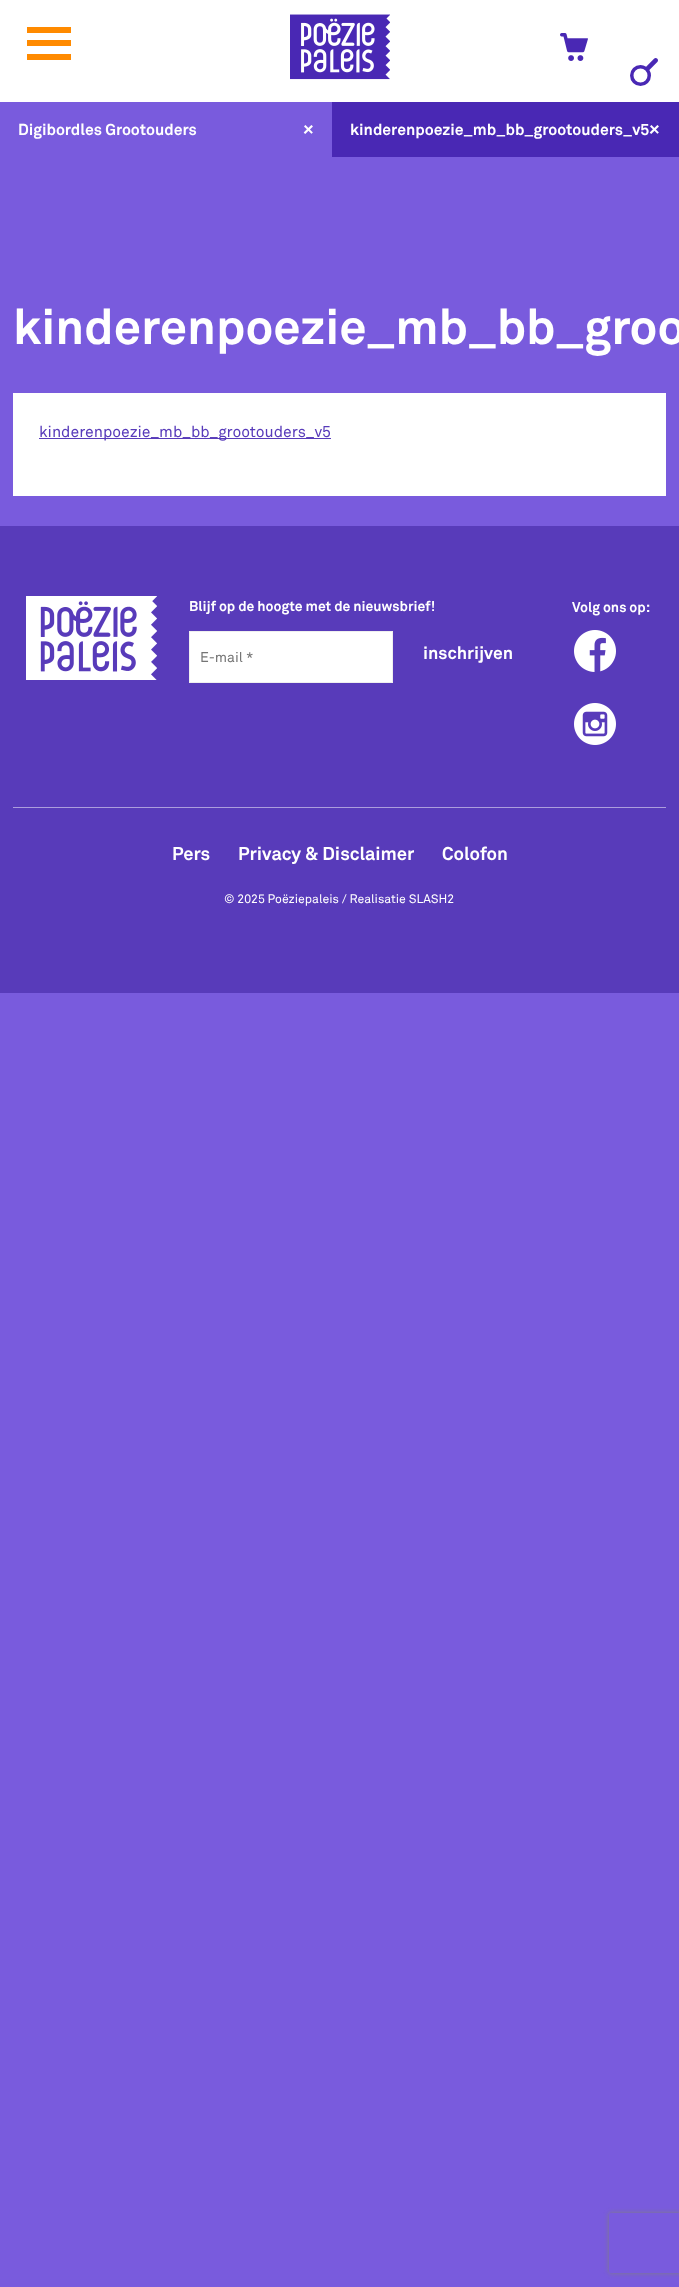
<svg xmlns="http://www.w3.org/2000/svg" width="679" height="2287">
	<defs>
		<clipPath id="clip1"><path d="M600 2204H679V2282H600ZM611 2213H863C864 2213 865 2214 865 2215V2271C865 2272 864 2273 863 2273H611C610 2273 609 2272 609 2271V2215C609 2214 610 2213 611 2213Z" clip-rule="evenodd" /></clipPath>
	</defs>
	<rect width="100%" height="100%" fill="#795BDD" />
	<rect x="0" y="0" width="679" height="102" fill="#FFFFFF" />
	<rect x="27" y="27" width="44" height="6" fill="#FF8A00" />
	<rect x="27" y="40" width="44" height="6" fill="#FF8A00" />
	<rect x="27" y="54" width="44" height="6" fill="#FF8A00" />
	<image x="290" y="14" width="100" height="66" href="assets/img1.png" />
	<image x="560" y="33" width="28" height="28" href="assets/img2.png" />
	<text x="658" y="58" transform="rotate(180 658 58)" font-family="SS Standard" font-size="28" fill="#4928B4">🔎</text>
	<text x="18" y="135" font-family="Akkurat" font-size="15.75" font-weight="700" fill="#FFFFFF">Digibordles Grootouders</text>
	<text x="300" y="129" transform="rotate(45 300 129)" font-family="Akkurat" font-size="18.4" font-weight="700" fill="#FFFFFF">+</text>
	<rect x="332" y="102" width="347" height="55" fill="#4928B4" />
	<text x="350" y="135" font-family="Akkurat" font-size="15.75" font-weight="700" fill="#FFFFFF">kinderenpoezie_mb_bb_grootouders_v5</text>
	<text x="646" y="129" transform="rotate(45 646 129)" font-family="Akkurat" font-size="18.4" font-weight="700" fill="#FFFFFF">+</text>
	<text x="13" y="344" font-family="Akkurat" font-size="49" font-weight="700" fill="#FFFFFF">kinderenpoezie_mb_bb_groo</text>
	<rect x="13" y="393" width="653" height="103" fill="#FFFFFF" />
	<rect x="39" y="438" width="292" height="1" fill="#583BBA" />
	<text x="39" y="437" font-family="Akkurat" font-size="15.75" fill="#583BBA">kinderenpoezie_mb_bb_grootouders_v5</text>
	<rect x="0" y="526" width="679" height="467" fill="#583BBA" />
	<rect x="13" y="807" width="653" height="1" fill="#AC9DDD" />
	<image x="26" y="596" width="131" height="84" href="assets/img3.png" />
	<text x="189" y="611" font-family="Akkurat" font-size="14" font-weight="700" fill="#FFFFFF">Blijf op de hoogte met de nieuwsbrief!</text>
	<rect x="189.5" y="631.5" width="203" height="51" fill="#FFFFFF" stroke="#EFEFEF" />
	<text x="200" y="662" font-family="Akkurat" font-size="14" fill="#757575">E-mail *</text>
	<text x="423" y="659" font-family="Akkurat" font-size="17.5" font-weight="700" fill="#FFFFFF">inschrijven</text>
	<text x="572" y="612" font-family="Akkurat" font-size="14" font-weight="700" fill="#FFFFFF">Volg ons op:</text>
	<image x="574" y="630" width="42" height="42" href="assets/img4.png" />
	<image x="574" y="703" width="42" height="42" href="assets/img5.png" />
	<g font-family="Akkurat" font-size="18.4" font-weight="700" fill="#FFFFFF">
		<text x="172" y="860">Pers</text>
		<text x="238" y="860">Privacy &amp; Disclaimer</text>
		<text x="442" y="860">Colofon</text>
	</g>
	<text x="224" y="903" font-family="Akkurat" font-size="12.25" fill="#FFFFFF">© 2025 Poëziepaleis / Realisatie SLASH2</text>
	<g clip-path="url(#clip1)">
		<rect x="609" y="2213" width="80" height="60" rx="2" fill="#808080" filter="blur(2.5px)" />
	</g>
</svg>
